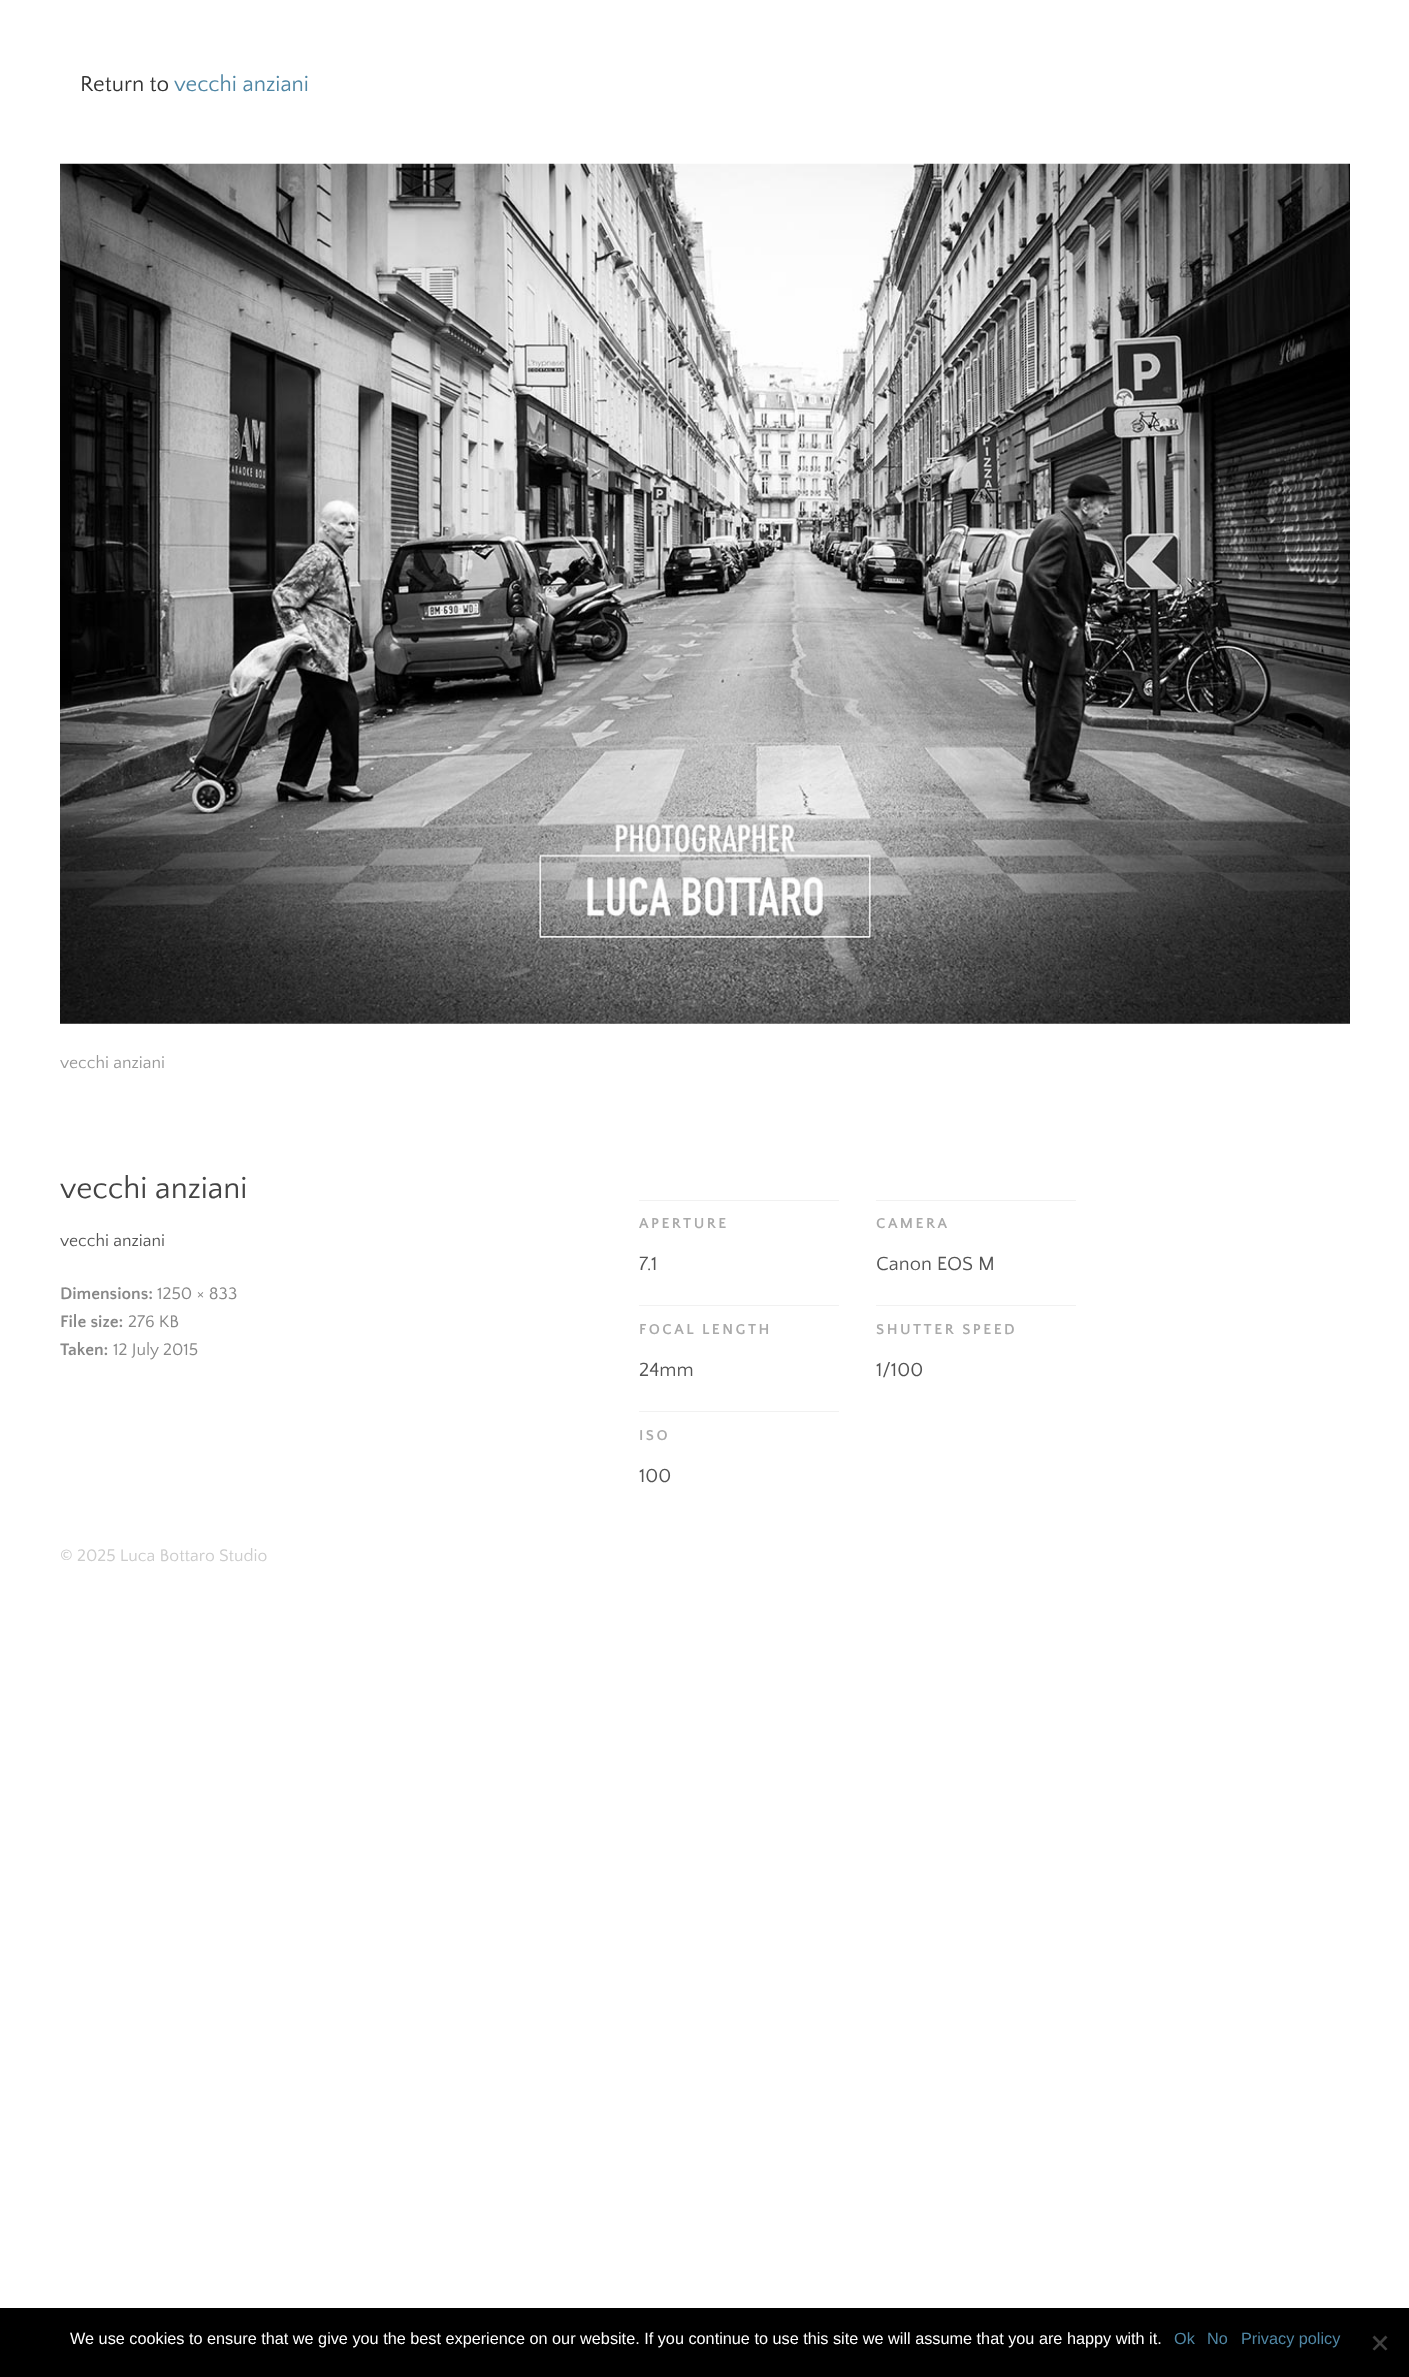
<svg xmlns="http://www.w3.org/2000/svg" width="1409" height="2377">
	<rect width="100%" height="100%" fill="#FFFFFF" />
	<text x="80" y="91" font-family="Quattrocento Sans" font-size="22.5" fill="#333333">Return to</text>
	<text x="174" y="91" font-family="Quattrocento Sans" font-size="22.5" fill="#5087A5">vecchi anziani</text>
	<image x="60" y="163" width="1290" height="861" href="assets/img1.png" />
	<text x="60" y="1068" font-family="Quattrocento Sans" font-size="17.5" fill="#999999">vecchi anziani</text>
	<text x="60" y="1198" font-family="Quattrocento Sans" font-size="31.25" fill="#444444">vecchi anziani</text>
	<text x="60" y="1246" font-family="Quattrocento Sans" font-size="17.5" fill="#555555">vecchi anziani</text>
	<text x="60" y="1299" font-family="Quattrocento Sans" font-size="17.5" font-weight="700" fill="#888888">Dimensions:</text>
	<text x="157" y="1299" font-family="Quattrocento Sans" font-size="17.5" fill="#888888">1250 × 833</text>
	<text x="60" y="1327" font-family="Quattrocento Sans" font-size="17.5" font-weight="700" fill="#888888">File size:</text>
	<text x="128" y="1327" font-family="Quattrocento Sans" font-size="17.5" fill="#888888">276 KB</text>
	<text x="60" y="1355" font-family="Quattrocento Sans" font-size="17.5" font-weight="700" fill="#888888">Taken:</text>
	<text x="113" y="1355" font-family="Quattrocento Sans" font-size="17.5" fill="#888888">12 July 2015</text>
	<rect x="639" y="1200" width="200" height="1" fill="#F1F1F1" />
	<text x="639" y="1228" font-family="Quattrocento Sans" font-size="15" font-weight="700" letter-spacing="2.5" fill="#AAAAAA">APERTURE</text>
	<text x="639" y="1270" font-family="Quattrocento Sans" font-size="20" fill="#555555">7.1</text>
	<rect x="876" y="1200" width="200" height="1" fill="#F1F1F1" />
	<text x="876" y="1228" font-family="Quattrocento Sans" font-size="15" font-weight="700" letter-spacing="2.5" fill="#AAAAAA">CAMERA</text>
	<text x="876" y="1270" font-family="Quattrocento Sans" font-size="20" fill="#555555">Canon EOS M</text>
	<rect x="639" y="1305" width="200" height="1" fill="#F1F1F1" />
	<text x="639" y="1334" font-family="Quattrocento Sans" font-size="15" font-weight="700" letter-spacing="2.5" fill="#AAAAAA">FOCAL LENGTH</text>
	<text x="639" y="1376" font-family="Quattrocento Sans" font-size="20" fill="#555555">24mm</text>
	<rect x="876" y="1305" width="200" height="1" fill="#F1F1F1" />
	<text x="876" y="1334" font-family="Quattrocento Sans" font-size="15" font-weight="700" letter-spacing="2.5" fill="#AAAAAA">SHUTTER SPEED</text>
	<text x="876" y="1376" font-family="Quattrocento Sans" font-size="20" fill="#555555">1/100</text>
	<rect x="639" y="1411" width="200" height="1" fill="#F1F1F1" />
	<text x="639" y="1440" font-family="Quattrocento Sans" font-size="15" font-weight="700" letter-spacing="2.5" fill="#AAAAAA">ISO</text>
	<text x="639" y="1482" font-family="Quattrocento Sans" font-size="20" fill="#555555">100</text>
	<text x="60" y="1561" font-family="Quattrocento Sans" font-size="17.5" fill="#CCCCCC">© 2025 Luca Bottaro Studio</text>
	<rect x="0" y="2308" width="1409" height="69" fill="#000000" />
	<text x="70" y="2344" font-family="Liberation Sans" font-size="16.25" fill="#FFFFFF">We use cookies to ensure that we give you the best experience on our website. If you continue to use this site we will assume that you are happy with it.</text>
	<g font-family="Liberation Sans" font-size="16.25" fill="#5087A5">
		<text x="1174" y="2344">Ok</text>
		<text x="1207" y="2344">No</text>
		<text x="1241" y="2344">Privacy policy</text>
	</g>
	<path d="M1385.5 2335.5L1387.5 2337.5L1374.5 2350.5L1372.5 2349Z" fill="#404040" />
	<path d="M1372.5 2337.5L1374.5 2335.5L1387.5 2349L1385.5 2350.5Z" fill="#404040" />
</svg>
